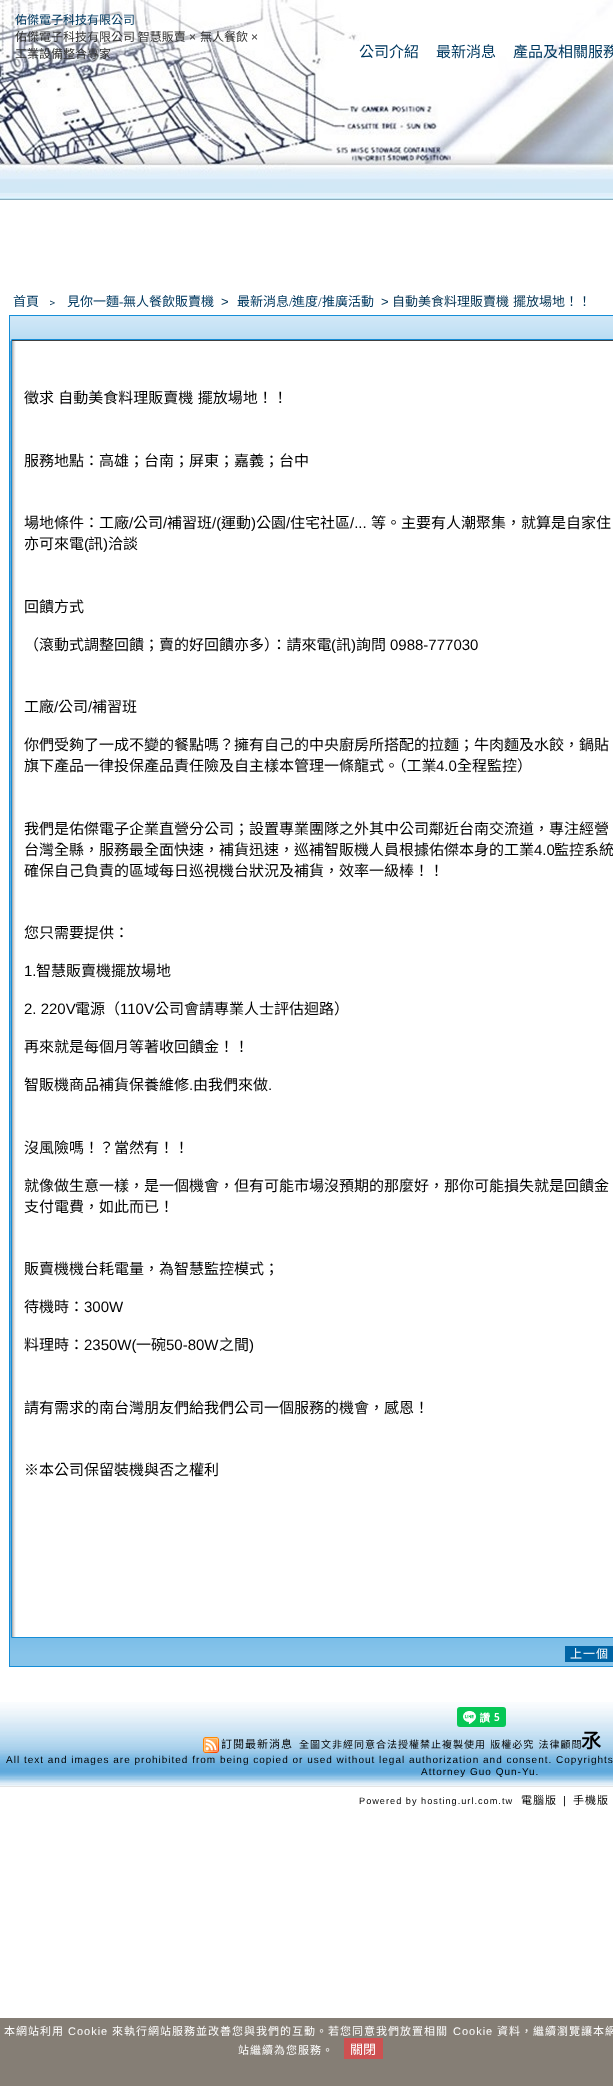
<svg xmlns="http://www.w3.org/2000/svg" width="613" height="2086">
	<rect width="100%" height="100%" fill="#FFFFFF" />
	<image x="0" y="0" width="613" height="200" href="assets/img1.png" />
	<text x="15" y="24" font-family="Noto Sans CJK TC" font-size="12" fill="#003960">佑傑電子科技有限公司</text>
	<text x="15" y="41" font-family="Noto Sans CJK TC" font-size="12" fill="#333333">佑傑電子科技有限公司 智慧販賣</text>
	<text x="189" y="41" font-family="Liberation Sans" font-size="12" fill="#333333">×</text>
	<text x="200" y="41" font-family="Noto Sans CJK TC" font-size="12" fill="#333333">無人餐飲</text>
	<text x="251" y="41" font-family="Liberation Sans" font-size="12" fill="#333333">×</text>
	<text x="15" y="58" font-family="Noto Sans CJK TC" font-size="12" fill="#333333">工業設備整合專家</text>
	<g font-family="Noto Sans CJK TC" font-size="15" fill="#003960">
		<text x="359" y="57">公司介紹</text>
		<text x="436" y="57">最新消息</text>
		<text x="513" y="57">產品及相關服務</text>
	</g>
	<text x="13" y="306" font-family="Noto Sans CJK TC" font-size="13" fill="#003960">首頁</text>
	<text x="46" y="306" font-family="Noto Sans CJK TC" font-size="13" fill="#003152">﹥</text>
	<text x="67" y="306" font-family="Noto Sans CJK TC" font-size="13" fill="#003960">見你一麵</text>
	<text x="119" y="306" font-family="Liberation Serif" font-size="13" fill="#003960">-</text>
	<text x="123" y="306" font-family="Noto Sans CJK TC" font-size="13" fill="#003960">無人餐飲販賣機</text>
	<text x="221" y="306" font-family="Liberation Sans" font-size="13" fill="#003152">&gt;</text>
	<text x="237" y="306" font-family="Noto Sans CJK TC" font-size="13" fill="#003960">最新消息</text>
	<text x="289" y="306" font-family="Liberation Serif" font-size="13" fill="#003960">/</text>
	<text x="292" y="306" font-family="Noto Sans CJK TC" font-size="13" fill="#003960">進度</text>
	<text x="318" y="306" font-family="Liberation Serif" font-size="13" fill="#003960">/</text>
	<text x="322" y="306" font-family="Noto Sans CJK TC" font-size="13" fill="#003960">推廣活動</text>
	<text x="381" y="306" font-family="Liberation Sans" font-size="13" fill="#003152">&gt;</text>
	<text x="392" y="306" word-spacing="1" font-family="Noto Sans CJK TC" font-size="13" fill="#003152">自動美食料理販賣機 擺放場地！！</text>
	<image x="9" y="315" width="604" height="26" href="assets/img2.png" />
	<image x="9" y="341" width="7" height="1273" href="assets/img3.png" />
	<g font-family="Noto Sans CJK TC" font-size="15" fill="#000000">
		<text x="24" y="403" word-spacing="1">徵求 自動美食料理販賣機 擺放場地！！</text>
		<text x="24" y="466">服務地點：高雄；台南；屏東；嘉義；台中</text>
		<text x="24" y="528">場地條件：工廠</text>
	</g>
	<text x="129" y="528" font-family="Liberation Sans" font-size="15" fill="#000000">/</text>
	<text x="133" y="528" font-family="Noto Sans CJK TC" font-size="15" fill="#000000">公司</text>
	<text x="163" y="528" font-family="Liberation Sans" font-size="15" fill="#000000">/</text>
	<text x="167" y="528" font-family="Noto Sans CJK TC" font-size="15" fill="#000000">補習班</text>
	<text x="212" y="528" font-family="Liberation Sans" font-size="15" fill="#000000">/(</text>
	<text x="221" y="528" font-family="Noto Sans CJK TC" font-size="15" fill="#000000">運動</text>
	<text x="251" y="528" font-family="Liberation Sans" font-size="15" fill="#000000">)</text>
	<text x="256" y="528" font-family="Noto Sans CJK TC" font-size="15" fill="#000000">公園</text>
	<text x="286" y="528" font-family="Liberation Sans" font-size="15" fill="#000000">/</text>
	<text x="290" y="528" font-family="Noto Sans CJK TC" font-size="15" fill="#000000">住宅社區</text>
	<text x="350" y="528" font-family="Liberation Sans" font-size="15" fill="#000000">/...</text>
	<g font-family="Noto Sans CJK TC" font-size="15" fill="#000000">
		<text x="371" y="528">等。主要有人潮聚集，就算是自家住</text>
		<text x="24" y="549">亦可來電</text>
	</g>
	<text x="84" y="549" font-family="Liberation Sans" font-size="15" fill="#000000">(</text>
	<text x="88" y="549" font-family="Noto Sans CJK TC" font-size="15" fill="#000000">訊</text>
	<text x="103" y="549" font-family="Liberation Sans" font-size="15" fill="#000000">)</text>
	<g font-family="Noto Sans CJK TC" font-size="15" fill="#000000">
		<text x="108" y="549">洽談</text>
		<text x="24" y="612">回饋方式</text>
		<text x="24" y="650">（滾動式調整回饋；賣的好回饋亦多）：請來電</text>
	</g>
	<text x="331" y="650" font-family="Liberation Sans" font-size="15" fill="#000000">(</text>
	<text x="336" y="650" font-family="Noto Sans CJK TC" font-size="15" fill="#000000">訊</text>
	<text x="351" y="650" font-family="Liberation Sans" font-size="15" fill="#000000">)</text>
	<text x="356" y="650" font-family="Noto Sans CJK TC" font-size="15" fill="#000000">詢問</text>
	<text x="390" y="650" font-family="Liberation Sans" font-size="15" fill="#000000">0988-777030</text>
	<text x="24" y="712" font-family="Noto Sans CJK TC" font-size="15" fill="#000000">工廠</text>
	<text x="54" y="712" font-family="Liberation Sans" font-size="15" fill="#000000">/</text>
	<text x="58" y="712" font-family="Noto Sans CJK TC" font-size="15" fill="#000000">公司</text>
	<text x="88" y="712" font-family="Liberation Sans" font-size="15" fill="#000000">/</text>
	<g font-family="Noto Sans CJK TC" font-size="15" fill="#000000">
		<text x="92" y="712">補習班</text>
		<text x="24" y="750">你們受夠了一成不變的餐點嗎？擁有自己的中央廚房所搭配的拉麵；牛肉麵及水餃，鍋貼</text>
		<text x="24" y="771">旗下產品一律投保產品責任險及自主樣本管理一條龍式。（工業</text>
	</g>
	<text x="436" y="771" font-family="Liberation Sans" font-size="15" fill="#000000">4.0</text>
	<g font-family="Noto Sans CJK TC" font-size="15" fill="#000000">
		<text x="457" y="771">全程監控）</text>
		<text x="24" y="834">我們是佑傑電子企業直營分公司；設置專業團隊之外其中公司鄰近台南交流道，專注經營</text>
		<text x="24" y="855">台灣全縣，服務最全面快速，補貨迅速，巡補智販機人員根據佑傑本身的工業</text>
	</g>
	<text x="534" y="855" font-family="Liberation Sans" font-size="15" fill="#000000">4.0</text>
	<g font-family="Noto Sans CJK TC" font-size="15" fill="#000000">
		<text x="554" y="855">監控系統</text>
		<text x="24" y="876">確保自己負責的區域每日巡視機台狀況及補貨，效率一級棒！！</text>
		<text x="24" y="938">您只需要提供：</text>
	</g>
	<text x="24" y="976" font-family="Liberation Sans" font-size="15" fill="#000000">1.</text>
	<text x="36" y="976" font-family="Noto Sans CJK TC" font-size="15" fill="#000000">智慧販賣機擺放場地</text>
	<text x="24" y="1014" font-family="Liberation Sans" font-size="15" fill="#000000">2. 220V</text>
	<text x="75" y="1014" font-family="Noto Sans CJK TC" font-size="15" fill="#000000">電源（</text>
	<text x="120" y="1014" font-family="Liberation Sans" font-size="15" fill="#000000">110V</text>
	<g font-family="Noto Sans CJK TC" font-size="15" fill="#000000">
		<text x="154" y="1014">公司會請專業人士評估迴路）</text>
		<text x="24" y="1052">再來就是每個月等著收回饋金！！</text>
		<text x="24" y="1090">智販機商品補貨保養維修</text>
	</g>
	<text x="189" y="1090" font-family="Liberation Sans" font-size="15" fill="#000000">.</text>
	<text x="193" y="1090" font-family="Noto Sans CJK TC" font-size="15" fill="#000000">由我們來做</text>
	<text x="268" y="1090" font-family="Liberation Sans" font-size="15" fill="#000000">.</text>
	<g font-family="Noto Sans CJK TC" font-size="15" fill="#000000">
		<text x="24" y="1153">沒風險嗎！？當然有！！</text>
		<text x="24" y="1191">就像做生意一樣，是一個機會，但有可能市場沒預期的那麼好，那你可能損失就是回饋金</text>
		<text x="24" y="1212">支付電費，如此而已！</text>
		<text x="24" y="1274">販賣機機台耗電量，為智慧監控模式；</text>
		<text x="24" y="1312">待機時：</text>
	</g>
	<text x="84" y="1312" font-family="Liberation Sans" font-size="15" fill="#000000">300W</text>
	<text x="24" y="1350" font-family="Noto Sans CJK TC" font-size="15" fill="#000000">料理時：</text>
	<text x="84" y="1350" font-family="Liberation Sans" font-size="15" fill="#000000">2350W(</text>
	<text x="136" y="1350" font-family="Noto Sans CJK TC" font-size="15" fill="#000000">一碗</text>
	<text x="166" y="1350" font-family="Liberation Sans" font-size="15" fill="#000000">50-80W</text>
	<text x="219" y="1350" font-family="Noto Sans CJK TC" font-size="15" fill="#000000">之間</text>
	<text x="249" y="1350" font-family="Liberation Sans" font-size="15" fill="#000000">)</text>
	<g font-family="Noto Sans CJK TC" font-size="15" fill="#000000">
		<text x="24" y="1413">請有需求的南台灣朋友們給我們公司一個服務的機會，感恩！</text>
		<text x="24" y="1475">※本公司保留裝機與否之權利</text>
	</g>
	<image x="9" y="1614" width="604" height="53" href="assets/img4.png" />
	<rect x="565" y="1646" width="48" height="16" fill="#0064A5" />
	<text x="570" y="1658" font-family="Noto Sans CJK TC" font-size="12" letter-spacing="1" fill="#FFFFFF">上一個</text>
	<image x="0" y="1702" width="613" height="85" href="assets/img5.png" />
	<image x="457" y="1707" width="49" height="20" href="assets/img6.png" />
	<image x="203" y="1737" width="16" height="16" href="assets/img7.png" />
	<text x="221" y="1748" font-family="Noto Sans CJK TC" font-size="11" letter-spacing="1" fill="#000000">訂閱最新消息</text>
	<text x="299" y="1748" word-spacing="1" font-family="Noto Sans CJK TC" font-size="10" letter-spacing="1" fill="#000000">全圖文非經同意合法授權禁止複製使用 版權必究 法律顧問</text>
	<text x="581" y="1748" font-family="Noto Sans CJK TC" font-size="20" font-weight="700" letter-spacing="1" fill="#000000">氶</text>
	<g font-family="Liberation Sans" font-size="10" letter-spacing="1" fill="#000000">
		<text x="6" y="1763">All text and images are prohibited from being copied or used without legal authorization and consent. Copyrights</text>
		<text x="421" y="1775">Attorney Guo Qun-Yu.</text>
	</g>
	<text x="359" y="1804" font-family="Liberation Sans" font-size="9.2" letter-spacing="1" fill="#000000">Powered by hosting.url.com.tw</text>
	<text x="521" y="1804" font-family="Noto Sans CJK TC" font-size="11" letter-spacing="1" fill="#000000">電腦版</text>
	<text x="563" y="1804" font-family="Liberation Sans" font-size="11" letter-spacing="1" fill="#000000">|</text>
	<text x="573" y="1804" font-family="Noto Sans CJK TC" font-size="11" letter-spacing="1" fill="#000000">手機版</text>
	<rect x="0" y="2018" width="613" height="68" fill="#857E75" />
	<text x="4" y="2035" font-family="Noto Sans CJK TC" font-size="11" letter-spacing="1" fill="#FFFFFF">本網站利用</text>
	<text x="68" y="2035" font-family="Liberation Sans" font-size="11" letter-spacing="1" fill="#FFFFFF">Cookie</text>
	<text x="112" y="2035" font-family="Noto Sans CJK TC" font-size="11" letter-spacing="1" fill="#FFFFFF">來執行網站服務並改善您與我們的互動。若您同意我們放置相關</text>
	<text x="453" y="2035" font-family="Liberation Sans" font-size="11" letter-spacing="1" fill="#FFFFFF">Cookie</text>
	<g font-family="Noto Sans CJK TC" font-size="11" letter-spacing="1" fill="#FFFFFF">
		<text x="497" y="2035">資料，繼續瀏覽讓本網</text>
		<text x="238" y="2054">站繼續為您服務。</text>
	</g>
	<rect x="344" y="2038" width="39" height="21" fill="#CD5151" />
	<text x="350" y="2054" font-family="Noto Sans CJK TC" font-size="13" fill="#FFFFFF">關閉</text>
</svg>
